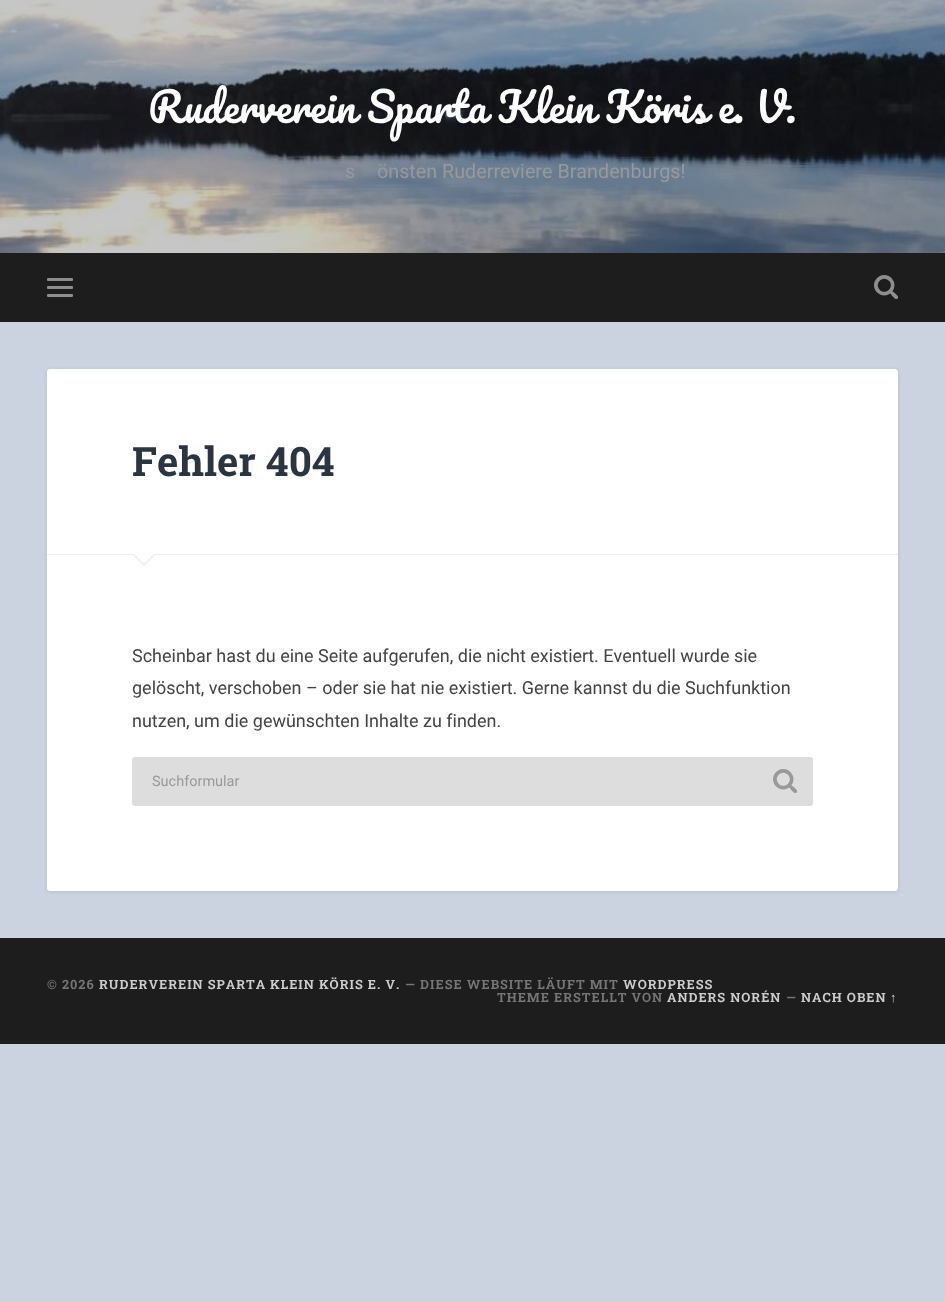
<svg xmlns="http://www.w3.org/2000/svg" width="945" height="1302">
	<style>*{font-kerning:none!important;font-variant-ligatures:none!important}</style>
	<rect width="100%" height="100%" fill="#CCD3E0" />
	<image x="0" y="0" width="945" height="253" href="assets/img1.png" />
	<text x="148" y="123" font-family="Pacifico" font-size="40.5" fill="#FFFFFF">Ruderverein Sparta Klein Köris e. V.</text>
	<g font-family="Roboto" font-size="19.75" fill="#999999">
		<text x="345" y="178">s</text>
		<text x="377" y="178">önsten Ruderreviere Brandenburgs!</text>
	</g>
	<rect x="0" y="253" width="945" height="69" fill="#1D1D1D" />
	<rect x="47" y="278" width="26" height="3" rx="1" fill="#8E8E8E" />
	<rect x="47" y="286" width="26" height="3" rx="1" fill="#8E8E8E" />
	<rect x="47" y="294" width="26" height="3" rx="1" fill="#8E8E8E" />
	<image x="874" y="275" width="24" height="24" href="assets/img2.png" />
	<rect x="47" y="370" width="851" height="522" rx="3" fill="#000000" fill-opacity="0.1" filter="blur(2px)" />
	<rect x="47" y="369" width="851" height="522" rx="3" fill="#FFFFFF" />
	<rect x="47" y="554" width="851" height="1" fill="#EEEEEE" />
	<text x="132" y="476" font-family="Roboto Slab" font-size="40.5" font-weight="700" fill="#2B3542">Fehler 404</text>
	<path d="M132 554H156L144 566Z" fill="#EEEEEE" />
	<path d="M133 553H155L144 564Z" fill="#FFFFFF" />
	<g font-family="Roboto" font-size="18" fill="#444444">
		<text x="132" y="662">Scheinbar hast du eine Seite aufgerufen, die nicht existiert. Eventuell wurde sie</text>
		<text x="132" y="694">gelöscht, verschoben – oder sie hat nie existiert. Gerne kannst du die Suchfunktion</text>
		<text x="132" y="727">nutzen, um die gewünschten Inhalte zu finden.</text>
	</g>
	<rect x="132" y="757" width="681" height="49" rx="3" fill="#DDDDDD" />
	<text x="152" y="786" font-family="Roboto" font-size="14.5" fill="#999999">Suchformular</text>
	<image x="773" y="769" width="24" height="24" href="assets/img3.png" />
	<rect x="0" y="938" width="945" height="106" fill="#1D1D1D" />
	<text x="47" y="989" font-family="Roboto Slab" font-size="12.8" font-weight="700" letter-spacing="1" fill="#767676">© 2026</text>
	<text x="99" y="989" font-family="Roboto Slab" font-size="12.8" font-weight="700" letter-spacing="1" fill="#CCCCCC">RUDERVEREIN SPARTA</text>
	<text x="270" y="989" font-family="Roboto Slab" font-size="12.8" font-weight="700" letter-spacing="1" fill="#CCCCCC">KLEIN KÖRIS E. V.</text>
	<text x="405" y="989" font-family="Roboto Slab" font-size="12.8" font-weight="700" letter-spacing="1" fill="#767676">— DIESE WEBSITE LÄUFT MIT</text>
	<text x="623" y="989" font-family="Roboto Slab" font-size="12.8" font-weight="700" letter-spacing="1" fill="#CCCCCC">WORDPRESS</text>
	<text x="497" y="1002" font-family="Roboto Slab" font-size="12.8" font-weight="700" letter-spacing="1" fill="#767676">THEME ERSTELLT VON</text>
	<text x="667" y="1002" font-family="Roboto Slab" font-size="12.8" font-weight="700" letter-spacing="1" fill="#CCCCCC">ANDERS NORÉN</text>
	<text x="786" y="1002" font-family="Roboto Slab" font-size="12.8" font-weight="700" letter-spacing="1" fill="#767676">—</text>
	<text x="801" y="1002" font-family="Roboto Slab" font-size="12.8" font-weight="700" letter-spacing="1" fill="#CCCCCC">NACH OBEN</text>
	<text x="890" y="1002" font-family="Liberation Sans" font-size="12.8" font-weight="700" letter-spacing="1" fill="#CCCCCC">↑</text>
</svg>
